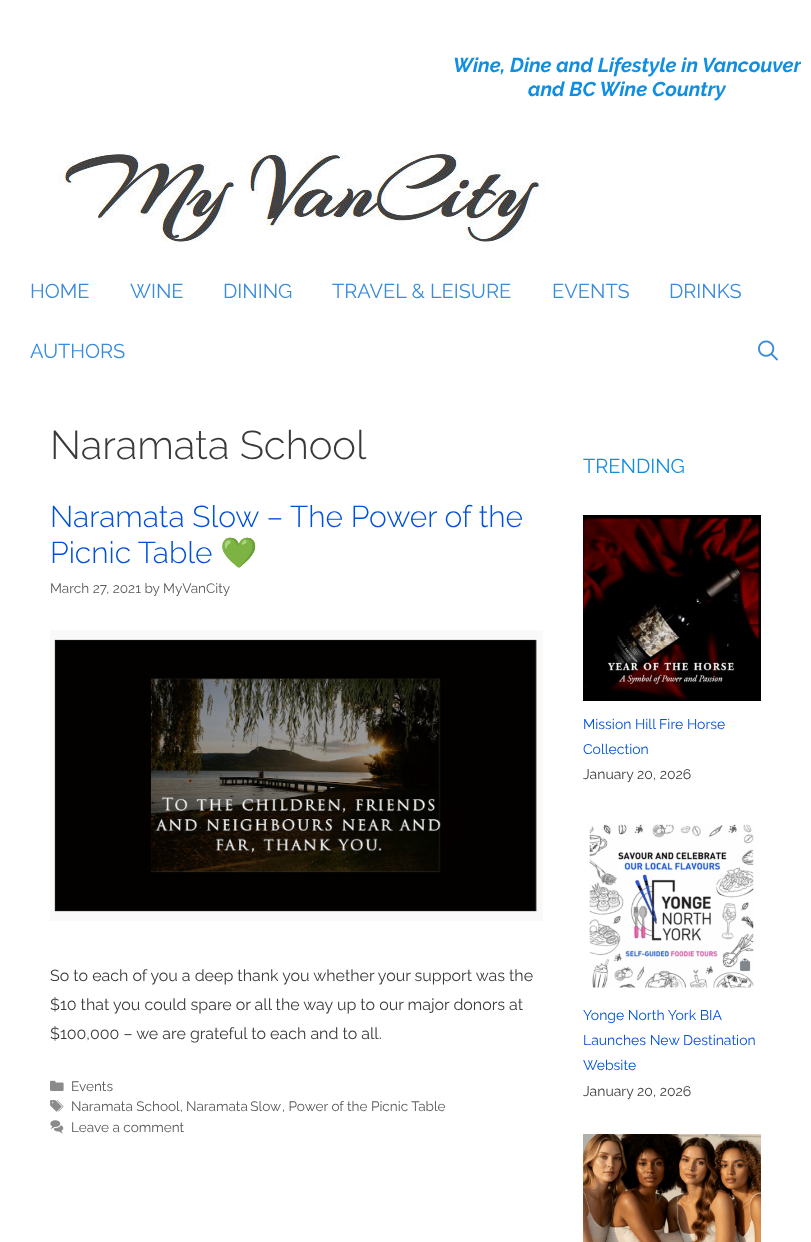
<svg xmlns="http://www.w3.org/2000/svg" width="811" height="1242">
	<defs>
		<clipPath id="clip1"><rect x="453" y="0" width="348" height="121" /></clipPath>
	</defs>
	<rect width="100%" height="100%" fill="#FFFFFF" />
	<g clip-path="url(#clip1)">
		<text x="453" y="72" font-family="Raleway" font-size="20" font-weight="700" font-style="italic" fill="#0F8FE4">Wine, Dine and Lifestyle in Vancouver</text>
	</g>
	<text x="528" y="96" font-family="Raleway" font-size="20" font-weight="700" font-style="italic" fill="#0F8FE4">and BC Wine Country</text>
	<image x="58" y="153" width="488" height="95" href="assets/img1.png" />
	<g font-family="Raleway" font-size="20" fill="#398BDD">
		<text x="30" y="298">HOME</text>
		<text x="130" y="298">WINE</text>
		<text x="223" y="298">DINING</text>
		<text x="332" y="298">TRAVEL &amp; LEISURE</text>
		<text x="552" y="298">EVENTS</text>
		<text x="669" y="298">DRINKS</text>
		<text x="30" y="358">AUTHORS</text>
	</g>
	<image x="758" y="340" width="20" height="21" href="assets/img2.png" />
	<text x="50" y="459" font-family="Raleway" font-size="40" font-weight="300" fill="#3A3A3A">Naramata School</text>
	<g font-family="Raleway" font-size="30" font-weight="300" fill="#0050DB">
		<text x="50" y="527">Naramata Slow – The Power of the</text>
		<text x="50" y="563">Picnic Table</text>
	</g>
	<text x="220" y="563" font-family="Noto Color Emoji" font-size="30" fill="#0050DB">💚</text>
	<text x="50" y="593" font-family="Raleway" font-size="13.6" fill="#595959">March 27, 2021 by MyVanCity</text>
	<image x="50" y="630" width="493" height="291" href="assets/img3.png" />
	<g font-family="Raleway" font-size="16" fill="#3A3A3A">
		<text x="50" y="981">So to each of you a deep thank you whether your support was the</text>
		<text x="50" y="1010">$10 that you could spare or all the way up to our major donors at</text>
		<text x="50" y="1039">$100,000 – we are grateful to each and to all.</text>
	</g>
	<image x="50" y="1080" width="14" height="11" href="assets/img4.png" />
	<text x="71" y="1091" font-family="Raleway" font-size="13.6" fill="#595959">Events</text>
	<image x="50" y="1100" width="14" height="12" href="assets/img5.png" />
	<g font-family="Raleway" font-size="13.6" fill="#595959">
		<text x="71" y="1111">Naramata School,</text>
		<text x="186" y="1111" word-spacing="-1">Naramata Slow</text>
		<text x="282" y="1111">, Power of the Picnic Table</text>
	</g>
	<image x="50" y="1120" width="14" height="14" href="assets/img6.png" />
	<text x="71" y="1132" font-family="Raleway" font-size="13.6" fill="#595959">Leave a comment</text>
	<text x="583" y="473" font-family="Raleway" font-size="20" fill="#0F8FE4">TRENDING</text>
	<image x="583" y="515" width="178" height="186" href="assets/img7.png" />
	<g font-family="Raleway" font-size="14" fill="#0050DB">
		<text x="583" y="729">Mission Hill Fire Horse</text>
		<text x="583" y="754">Collection</text>
	</g>
	<text x="583" y="779" font-family="Raleway" font-size="14" fill="#3A3A3A">January 20, 2026</text>
	<image x="589" y="824" width="165" height="164" href="assets/img8.png" />
	<g font-family="Raleway" font-size="14" fill="#0050DB">
		<text x="583" y="1020">Yonge North York BIA</text>
		<text x="583" y="1045">Launches New Destination</text>
		<text x="583" y="1070">Website</text>
	</g>
	<text x="583" y="1096" font-family="Raleway" font-size="14" fill="#3A3A3A">January 20, 2026</text>
	<image x="583" y="1134" width="178" height="108" href="assets/img9.png" />
</svg>
